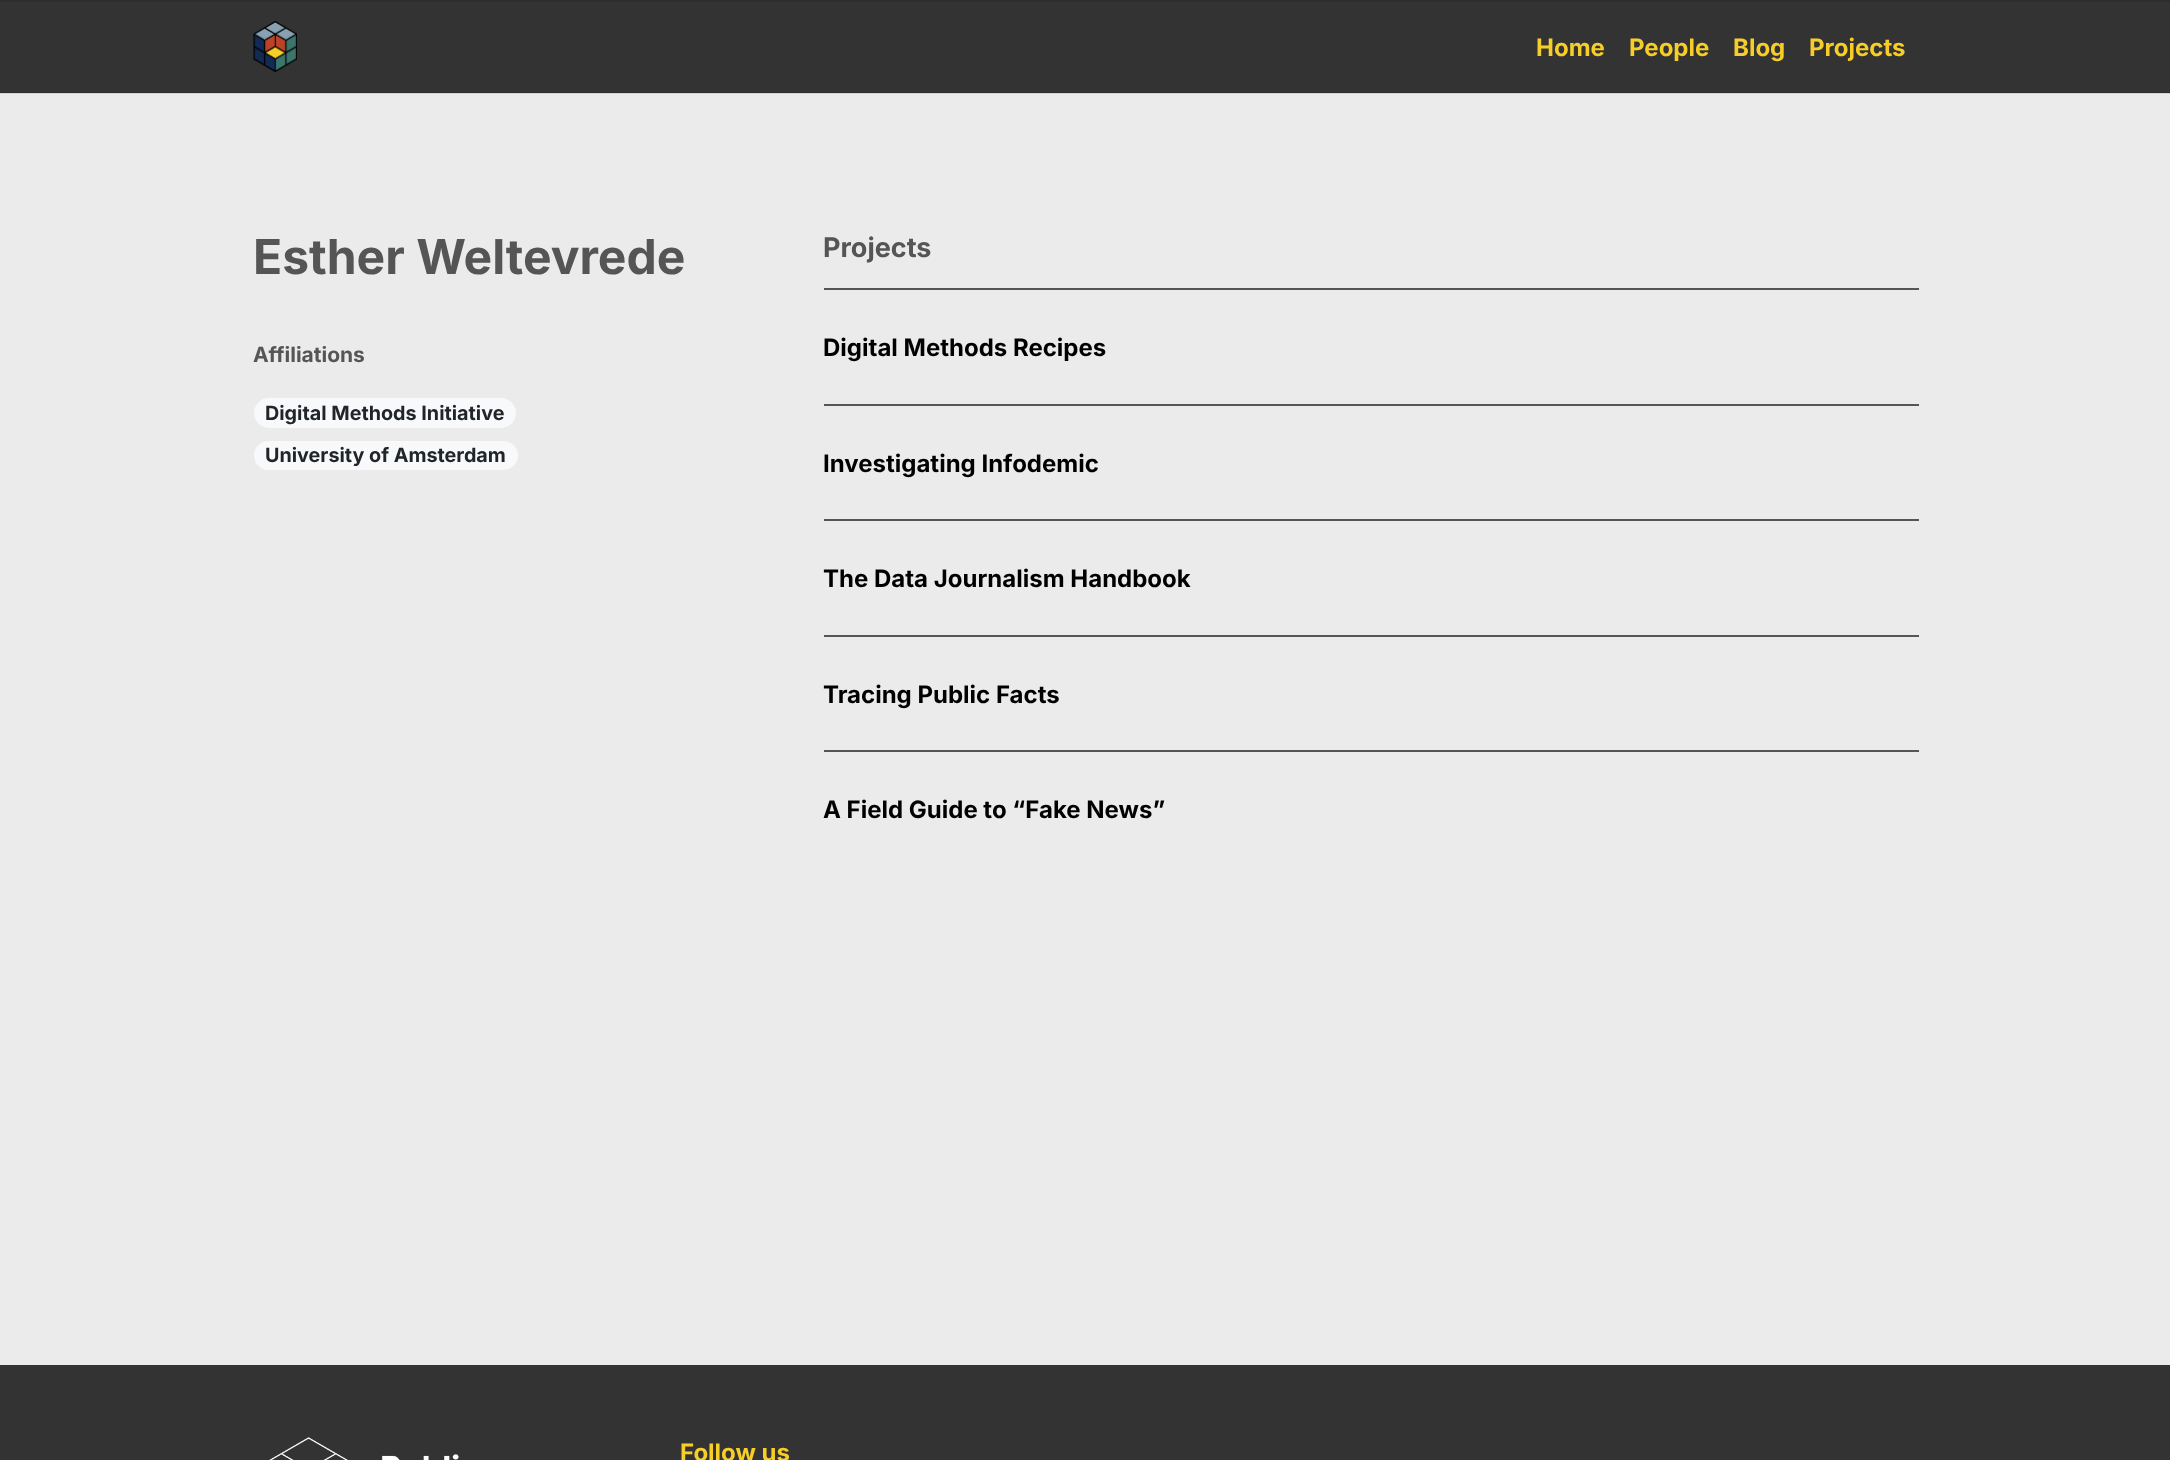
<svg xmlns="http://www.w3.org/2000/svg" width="2170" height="1460">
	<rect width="100%" height="100%" fill="#EBEBEB" />
	<rect x="0" y="93" width="2170" height="1" fill="#D4D4D4" />
	<rect x="0" y="2" width="2170" height="90" fill="#333333" />
	<rect x="0" y="92" width="2170" height="1" fill="#2E2E2E" />
	<rect x="0" y="0" width="2170" height="2" fill="#2E2E2E" />
	<image x="253" y="21" width="44" height="51" href="assets/img1.png" />
	<g font-family="Inter" font-size="24" font-weight="700" fill="#F7CD28">
		<text x="1536" y="56">Home</text>
		<text x="1629" y="56">People</text>
		<text x="1733" y="56">Blog</text>
		<text x="1809" y="56">Projects</text>
	</g>
	<text x="253" y="274" font-family="Inter" font-size="48" font-weight="700" fill="#555555">Esther Weltevrede</text>
	<text x="253" y="362" font-family="Inter" font-size="21" font-weight="700" fill="#555555">Affiliations</text>
	<rect x="254" y="398" width="262" height="30" rx="15" fill="#F8F9FA" />
	<text x="265" y="420" font-family="Inter" font-size="19.75" font-weight="700" fill="#212529">Digital Methods Initiative</text>
	<rect x="254" y="441" width="264" height="29" rx="14.5" fill="#F8F9FA" />
	<text x="265" y="462" font-family="Inter" font-size="19.75" font-weight="700" fill="#212529">University of Amsterdam</text>
	<text x="823" y="257" font-family="Inter" font-size="27" font-weight="700" fill="#555555">Projects</text>
	<rect x="824" y="288" width="1095" height="2" fill="#555555" />
	<text x="823" y="356" font-family="Inter" font-size="24" font-weight="700" fill="#000000">Digital Methods Recipes</text>
	<rect x="824" y="404" width="1095" height="2" fill="#555555" />
	<text x="823" y="472" font-family="Inter" font-size="24" font-weight="700" fill="#000000">Investigating Infodemic</text>
	<rect x="824" y="519" width="1095" height="2" fill="#555555" />
	<text x="823" y="587" font-family="Inter" font-size="24" font-weight="700" fill="#000000">The Data Journalism Handbook</text>
	<rect x="824" y="635" width="1095" height="2" fill="#555555" />
	<text x="823" y="703" font-family="Inter" font-size="24" font-weight="700" fill="#000000">Tracing Public Facts</text>
	<rect x="824" y="750" width="1095" height="2" fill="#555555" />
	<text x="823" y="818" font-family="Inter" font-size="24" font-weight="700" fill="#000000">A Field Guide to “Fake News”</text>
	<rect x="0" y="1365" width="2170" height="95" fill="#333333" />
	<image x="269" y="1437" width="190" height="23" href="assets/img2.png" />
	<text x="680" y="1461" font-family="Inter" font-size="24" font-weight="700" fill="#F7CD28">Follow us</text>
</svg>
